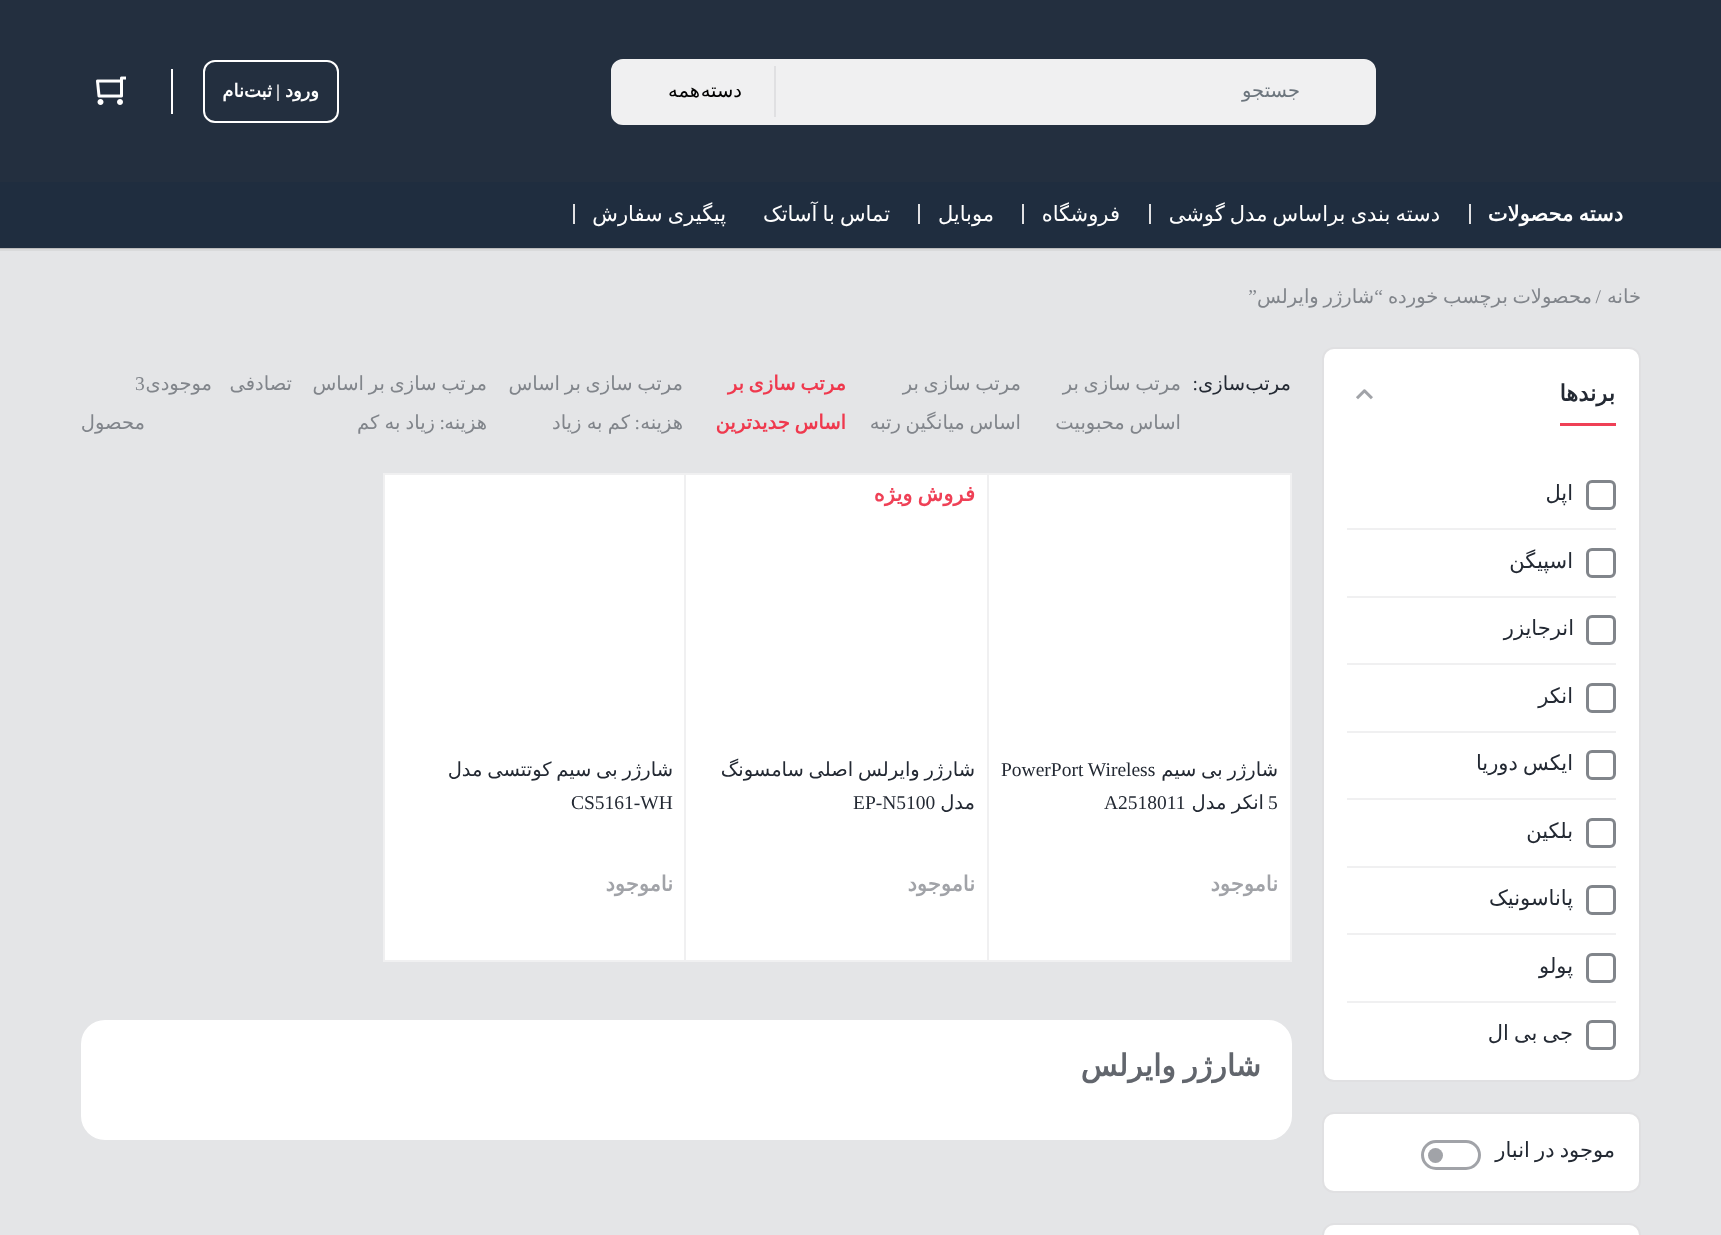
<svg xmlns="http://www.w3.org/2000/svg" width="1721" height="1235">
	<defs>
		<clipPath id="clip1"><rect x="146" y="365" width="1035" height="78" /></clipPath>
		<clipPath id="clip2"><rect x="1001" y="753" width="277" height="99" /></clipPath>
		<clipPath id="clip3"><rect x="698" y="753" width="277" height="99" /></clipPath>
		<clipPath id="clip4"><rect x="396" y="753" width="276" height="99" /></clipPath>
	</defs>
	<rect width="100%" height="100%" fill="#E4E5E7" />
	<rect x="0" y="0" width="1721" height="182" fill="#232F3F" />
	<rect x="612" y="60" width="763" height="64" rx="11" fill="#F0F0F1" stroke="#F0F0F1" stroke-width="2" />
	<text x="1300" y="97" font-family="DejaVu Sans" font-size="19.5" direction="rtl" fill="#6C757D">جستجو</text>
	<rect x="774" y="66" width="2" height="51" fill="#E0E0E2" />
	<g font-family="DejaVu Sans" font-size="19.5" direction="rtl" fill="#000000">
		<text x="742" y="97">دسته</text>
		<text x="700" y="97">همه</text>
	</g>
	<rect x="204" y="61" width="134" height="61" rx="11" fill="none" stroke="#FFFFFF" stroke-width="2" />
	<text x="319" y="97" font-family="DejaVu Sans" font-size="18" font-weight="700" direction="rtl" fill="#FFFFFF">ورود</text>
	<text x="280" y="97" font-family="Liberation Serif" font-size="18" font-weight="700" direction="rtl" fill="#FFFFFF">|</text>
	<g font-family="DejaVu Sans" font-size="18" font-weight="700" direction="rtl" fill="#FFFFFF">
		<text x="272" y="97">ثبت</text>
		<text x="244" y="97">نام</text>
	</g>
	<rect x="171" y="69" width="2" height="45" fill="#FFFFFF" />
	<image x="96" y="76" width="30" height="29" href="assets/img1.png" />
	<rect x="0" y="249" width="1721" height="2" fill="#D9DADB" />
	<rect x="0" y="248" width="1721" height="1" fill="#BBBBBC" />
	<rect x="0" y="182" width="1721" height="66" fill="#1F2D3F" />
	<text x="1623" y="221" word-spacing="-1.5" font-family="DejaVu Sans" font-size="21" font-weight="700" direction="rtl" fill="#FFFFFF">دسته محصولات</text>
	<rect x="1469" y="204" width="2" height="20" fill="#E0E0E2" />
	<text x="1440" y="221" word-spacing="-1.5" font-family="DejaVu Sans" font-size="21" direction="rtl" fill="#FFFFFF">دسته بندی براساس مدل گوشی</text>
	<rect x="1149" y="204" width="2" height="20" fill="#E0E0E2" />
	<text x="1120" y="221" font-family="DejaVu Sans" font-size="21" direction="rtl" fill="#FFFFFF">فروشگاه</text>
	<rect x="1022" y="204" width="2" height="20" fill="#E0E0E2" />
	<text x="994" y="221" font-family="DejaVu Sans" font-size="21" direction="rtl" fill="#FFFFFF">موبایل</text>
	<rect x="918" y="204" width="2" height="20" fill="#E0E0E2" />
	<g font-family="DejaVu Sans" font-size="21" direction="rtl" fill="#FFFFFF">
		<text x="890" y="221" word-spacing="-1.5">تماس با آساتک</text>
		<text x="726" y="221" word-spacing="-1.5">پیگیری سفارش</text>
	</g>
	<rect x="573" y="204" width="2" height="20" fill="#E0E0E2" />
	<text x="1641" y="303" font-family="DejaVu Sans" font-size="19.5" direction="rtl" fill="#81858B">خانه</text>
	<text x="1601" y="303" font-family="Liberation Serif" font-size="19.5" direction="rtl" fill="#81858B">/</text>
	<text x="1592" y="303" word-spacing="-1.5" font-family="DejaVu Sans" font-size="19.5" direction="rtl" fill="#81858B">محصولات برچسب خورده</text>
	<text x="1383" y="303" font-family="Liberation Serif" font-size="19.5" direction="rtl" fill="#81858B">“</text>
	<text x="1374" y="303" word-spacing="-1.5" font-family="DejaVu Sans" font-size="19.5" direction="rtl" fill="#81858B">شارژر وایرلس</text>
	<text x="1257" y="303" font-family="Liberation Serif" font-size="19.5" direction="rtl" fill="#81858B">”</text>
	<rect x="1323" y="348" width="317" height="733" rx="11" fill="#FFFFFF" stroke="#E0E0E2" stroke-width="2" />
	<rect x="1560" y="423" width="56" height="3" fill="#EF4056" />
	<text x="1615" y="401" font-family="DejaVu Sans" font-size="22.5" font-weight="700" direction="rtl" fill="#232933">برندها</text>
	<image x="1356" y="389" width="17" height="11" href="assets/img2.png" />
	<rect x="1347" y="528" width="269" height="2" fill="#F0F0F1" />
	<rect x="1587.5" y="481.5" width="27" height="27" rx="4.5" fill="none" stroke="#81858B" stroke-width="3" />
	<text x="1573" y="500" font-family="DejaVu Sans" font-size="21" direction="rtl" fill="#232933">اپل</text>
	<rect x="1347" y="596" width="269" height="2" fill="#F0F0F1" />
	<rect x="1587.5" y="549.5" width="27" height="27" rx="4.5" fill="none" stroke="#81858B" stroke-width="3" />
	<text x="1573" y="568" font-family="DejaVu Sans" font-size="21" direction="rtl" fill="#232933">اسپیگن</text>
	<rect x="1347" y="663" width="269" height="2" fill="#F0F0F1" />
	<rect x="1587.5" y="616.5" width="27" height="27" rx="4.5" fill="none" stroke="#81858B" stroke-width="3" />
	<text x="1574" y="635" font-family="DejaVu Sans" font-size="21" direction="rtl" fill="#232933">انرجایزر</text>
	<rect x="1347" y="731" width="269" height="2" fill="#F0F0F1" />
	<rect x="1587.5" y="684.5" width="27" height="27" rx="4.5" fill="none" stroke="#81858B" stroke-width="3" />
	<text x="1573" y="703" font-family="DejaVu Sans" font-size="21" direction="rtl" fill="#232933">انکر</text>
	<rect x="1347" y="798" width="269" height="2" fill="#F0F0F1" />
	<rect x="1587.5" y="751.5" width="27" height="27" rx="4.5" fill="none" stroke="#81858B" stroke-width="3" />
	<text x="1573" y="770" word-spacing="-1.5" font-family="DejaVu Sans" font-size="21" direction="rtl" fill="#232933">ایکس دوریا</text>
	<rect x="1347" y="866" width="269" height="2" fill="#F0F0F1" />
	<rect x="1587.5" y="819.5" width="27" height="27" rx="4.5" fill="none" stroke="#81858B" stroke-width="3" />
	<text x="1573" y="838" font-family="DejaVu Sans" font-size="21" direction="rtl" fill="#232933">بلکین</text>
	<rect x="1347" y="933" width="269" height="2" fill="#F0F0F1" />
	<rect x="1587.5" y="886.5" width="27" height="27" rx="4.5" fill="none" stroke="#81858B" stroke-width="3" />
	<text x="1573" y="905" font-family="DejaVu Sans" font-size="21" direction="rtl" fill="#232933">پاناسونیک</text>
	<rect x="1347" y="1001" width="269" height="2" fill="#F0F0F1" />
	<rect x="1587.5" y="954.5" width="27" height="27" rx="4.5" fill="none" stroke="#81858B" stroke-width="3" />
	<text x="1573" y="973" font-family="DejaVu Sans" font-size="21" direction="rtl" fill="#232933">پولو</text>
	<rect x="1587.5" y="1021.5" width="27" height="27" rx="4.5" fill="none" stroke="#81858B" stroke-width="3" />
	<text x="1573" y="1040" word-spacing="-1.5" font-family="DejaVu Sans" font-size="21" direction="rtl" fill="#232933">جی بی ال</text>
	<rect x="1323" y="1113" width="317" height="79" rx="11" fill="#FFFFFF" stroke="#E0E0E2" stroke-width="2" />
	<text x="1615" y="1157" word-spacing="-1.5" font-family="DejaVu Sans" font-size="21" direction="rtl" fill="#232933">موجود در انبار</text>
	<rect x="1422.5" y="1141.5" width="57" height="27" rx="13.5" fill="none" stroke="#A1A3A8" stroke-width="3" />
	<circle cx="1435.5" cy="1155.5" r="7.5" fill="#A1A3A8" />
	<rect x="1323" y="1224" width="317" height="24" rx="11" fill="#FFFFFF" stroke="#E0E0E2" stroke-width="2" />
	<g font-family="DejaVu Sans" font-size="19.5" direction="rtl" fill="#232933">
		<text x="1291" y="390">مرتب</text>
		<text x="1245" y="390">سازی</text>
	</g>
	<text x="1198" y="390" font-family="Liberation Serif" font-size="19.5" direction="rtl" fill="#232933">:</text>
	<g clip-path="url(#clip1)">
		<text x="1181" y="390" word-spacing="-1.5" font-family="DejaVu Sans" font-size="19.5" direction="rtl" fill="#81858B">مرتب سازی بر</text>
	</g>
	<g font-family="DejaVu Sans" font-size="19.5" direction="rtl" fill="#81858B">
		<text x="1181" y="429" word-spacing="-1.5">اساس محبوبیت</text>
		<text x="1021" y="390" word-spacing="-1.5">مرتب سازی بر</text>
		<text x="1021" y="429" word-spacing="-1.5">اساس میانگین رتبه</text>
	</g>
	<g font-family="DejaVu Sans" font-size="19.5" font-weight="700" direction="rtl" fill="#EF394E">
		<text x="846" y="390" word-spacing="-1.5">مرتب سازی بر</text>
		<text x="846" y="429" word-spacing="-1.5">اساس جدیدترین</text>
	</g>
	<g font-family="DejaVu Sans" font-size="19.5" direction="rtl" fill="#81858B">
		<text x="683" y="390" word-spacing="-1.5">مرتب سازی بر اساس</text>
		<text x="683" y="429">هزینه</text>
	</g>
	<text x="640" y="429" font-family="Liberation Serif" font-size="19.5" direction="rtl" fill="#81858B">:</text>
	<g font-family="DejaVu Sans" font-size="19.5" direction="rtl" fill="#81858B">
		<text x="630" y="429" word-spacing="-1">کم به زیاد</text>
		<text x="487" y="390" word-spacing="-1.5">مرتب سازی بر اساس</text>
		<text x="487" y="429">هزینه</text>
	</g>
	<text x="445" y="429" font-family="Liberation Serif" font-size="19.5" direction="rtl" fill="#81858B">:</text>
	<g font-family="DejaVu Sans" font-size="19.5" direction="rtl" fill="#81858B">
		<text x="435" y="429" word-spacing="-1">زیاد به کم</text>
		<text x="292" y="390">تصادفی</text>
		<text x="212" y="390">موجودی</text>
	</g>
	<text x="135" y="390" font-family="Liberation Serif" font-size="19.5" fill="#81858B">3</text>
	<text x="145" y="429" font-family="DejaVu Sans" font-size="19.5" direction="rtl" fill="#81858B">محصول</text>
	<rect x="988" y="474" width="303" height="487" fill="#FFFFFF" stroke="#F0F0F1" stroke-width="2" />
	<g clip-path="url(#clip2)">
		<text x="1278" y="776" word-spacing="-1.5" font-family="DejaVu Sans" font-size="19.5" direction="rtl" fill="#232933">شارژر بی سیم</text>
	</g>
	<g font-family="Liberation Serif" font-size="19.5" fill="#232933">
		<text x="1001" y="776">PowerPort Wireless</text>
		<text x="1268" y="809">5</text>
	</g>
	<text x="1264" y="809" word-spacing="-1" font-family="DejaVu Sans" font-size="19.5" direction="rtl" fill="#232933">انکر مدل</text>
	<text x="1104" y="809" font-family="Liberation Serif" font-size="19.5" fill="#232933">A2518011</text>
	<text x="1278" y="891" font-family="DejaVu Sans" font-size="21" font-weight="700" direction="rtl" fill="#A1A3A8">ناموجود</text>
	<rect x="685" y="474" width="303" height="487" fill="#FFFFFF" stroke="#F0F0F1" stroke-width="2" />
	<text x="975" y="501" word-spacing="-1.5" font-family="DejaVu Sans" font-size="21" font-weight="700" direction="rtl" fill="#EF4056">فروش ویژه</text>
	<g clip-path="url(#clip3)">
		<text x="975" y="776" word-spacing="-1.5" font-family="DejaVu Sans" font-size="19.5" direction="rtl" fill="#232933">شارژر وایرلس اصلی سامسونگ</text>
	</g>
	<text x="975" y="809" font-family="DejaVu Sans" font-size="19.5" direction="rtl" fill="#232933">مدل</text>
	<text x="853" y="809" font-family="Liberation Serif" font-size="19.5" fill="#232933">EP-N5100</text>
	<text x="975" y="891" font-family="DejaVu Sans" font-size="21" font-weight="700" direction="rtl" fill="#A1A3A8">ناموجود</text>
	<rect x="384" y="474" width="301" height="487" fill="#FFFFFF" stroke="#F0F0F1" stroke-width="2" />
	<g clip-path="url(#clip4)">
		<text x="673" y="776" word-spacing="-1.5" font-family="DejaVu Sans" font-size="19.5" direction="rtl" fill="#232933">شارژر بی سیم کوتتسی مدل</text>
	</g>
	<text x="571" y="809" font-family="Liberation Serif" font-size="19.5" fill="#232933">CS5161-WH</text>
	<text x="673" y="891" font-family="DejaVu Sans" font-size="21" font-weight="700" direction="rtl" fill="#A1A3A8">ناموجود</text>
	<rect x="81" y="1020" width="1211" height="120" rx="24" fill="#FFFFFF" />
	<text x="1261" y="1076" word-spacing="-2" font-family="DejaVu Sans" font-size="30" font-weight="700" direction="rtl" fill="#62666D">شارژر وایرلس</text>
</svg>
